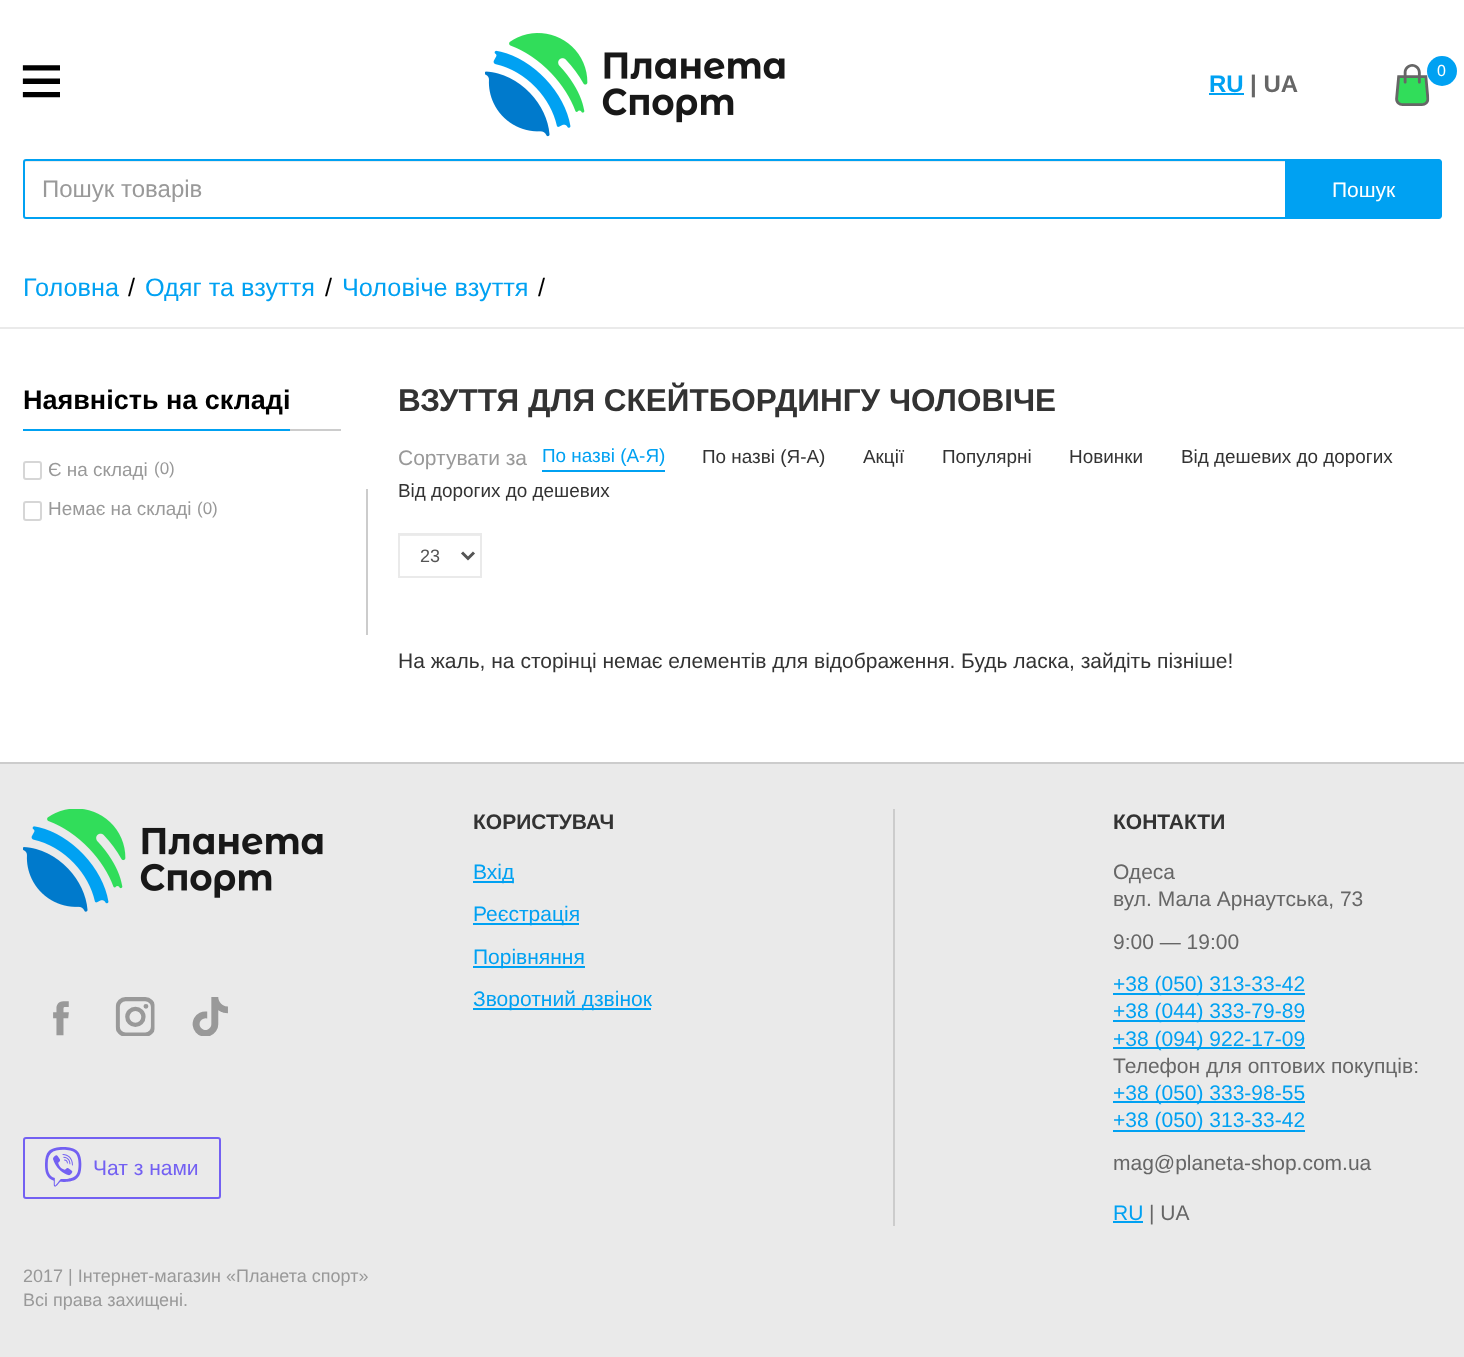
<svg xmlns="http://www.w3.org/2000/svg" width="1464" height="1357">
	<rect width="100%" height="100%" fill="#FFFFFF" />
	<image x="22" y="65" width="38" height="33" href="assets/img1.png" />
	<image x="485" y="33" width="300" height="104" href="assets/img2.png" />
	<image x="1395" y="64" width="35" height="42" href="assets/img3.png" />
	<circle cx="1442" cy="71" r="15" fill="#00A1F2" />
	<text x="1437" y="76" font-family="Liberation Sans" font-size="16" fill="#FFFFFF">0</text>
	<text x="1209" y="92" font-family="Liberation Sans" font-size="24" font-weight="700" fill="#00A1F2">RU</text>
	<rect x="1209" y="93" width="35" height="2" fill="#00A1F2" />
	<text x="1250" y="92" font-family="Liberation Sans" font-size="24" font-weight="700" fill="#666666">| UA</text>
	<path d="M26 162H1286V161H26C24 161 24 163 24 164C24 163 25 162 26 162Z" fill="#ECECEC" />
	<path d="M26 160H1286V218H26C25 218 24 217 24 216V162C24 161 25 160 26 160Z" fill="none" stroke="#00A1F2" stroke-width="2" />
	<text x="42" y="197" font-family="Liberation Sans" font-size="24" fill="#999999">Пошук товарів</text>
	<path d="M1286 159H1439C1440.5 159 1442 160.5 1442 162V216C1442 217.5 1440.5 219 1439 219H1286Z" fill="#00A1F2" />
	<text x="1332" y="197" font-family="Liberation Sans" font-size="21" fill="#FFFFFF">Пошук</text>
	<rect x="0" y="327" width="1464" height="2" fill="#EAEAEA" />
	<text x="23" y="296" font-family="Liberation Sans" font-size="25.25" fill="#00A1F2">Головна</text>
	<text x="128" y="296" font-family="Liberation Sans" font-size="25.25" fill="#000000">/</text>
	<text x="145" y="296" font-family="Liberation Sans" font-size="25.25" fill="#00A1F2">Одяг та взуття</text>
	<text x="325" y="296" font-family="Liberation Sans" font-size="25.25" fill="#000000">/</text>
	<text x="342" y="296" font-family="Liberation Sans" font-size="25.25" fill="#00A1F2">Чоловіче взуття</text>
	<text x="538" y="296" font-family="Liberation Sans" font-size="25.25" fill="#000000">/</text>
	<rect x="290" y="429" width="51" height="2" fill="#CCCCCC" />
	<text x="23" y="409" font-family="Liberation Sans" font-size="27" font-weight="700" fill="#000000">Наявність на складі</text>
	<rect x="23" y="429" width="267" height="2" fill="#00A1F2" />
	<rect x="24" y="462" width="17" height="17" rx="2" fill="none" stroke="#D6D6D6" stroke-width="2" />
	<text x="48" y="476" font-family="Liberation Sans" font-size="18.9" fill="#999999">Є на складі</text>
	<text x="154" y="474" font-family="Liberation Sans" font-size="17" fill="#999999">(0)</text>
	<rect x="24" y="502" width="17" height="18" rx="2" fill="none" stroke="#D6D6D6" stroke-width="2" />
	<text x="48" y="515" font-family="Liberation Sans" font-size="18.9" fill="#999999">Немає на складі</text>
	<text x="197" y="514" font-family="Liberation Sans" font-size="17" fill="#999999">(0)</text>
	<rect x="366" y="489" width="2" height="146" fill="#CCCCCC" />
	<text x="398" y="411" font-family="Liberation Sans" font-size="31.5" font-weight="700" fill="#333333">ВЗУТТЯ ДЛЯ СКЕЙТБОРДИНГУ ЧОЛОВІЧЕ</text>
	<text x="398" y="465" font-family="Liberation Sans" font-size="21" fill="#999999">Сортувати за</text>
	<rect x="542" y="470" width="123" height="2" fill="#00A1F2" />
	<text x="542" y="462" font-family="Liberation Sans" font-size="18.9" fill="#00A1F2">По назві (А-Я)</text>
	<g font-family="Liberation Sans" font-size="18.9" fill="#333333">
		<text x="702" y="463">По назві (Я-А)</text>
		<text x="863" y="463">Акції</text>
		<text x="942" y="463">Популярні</text>
		<text x="1069" y="463">Новинки</text>
		<text x="1181" y="463">Від дешевих до дорогих</text>
		<text x="398" y="497">Від дорогих до дешевих</text>
	</g>
	<rect x="399" y="535" width="81" height="1" fill="#ECECEC" />
	<rect x="399" y="534" width="82" height="43" fill="none" stroke="#EAEAEA" stroke-width="2" />
	<path d="M462 552.5L468 558.5L474 552.5" fill="none" stroke="#555555" stroke-width="3" />
	<text x="420" y="562" font-family="Liberation Sans" font-size="18" fill="#555555">23</text>
	<text x="398" y="668" font-family="Liberation Sans" font-size="21" fill="#333333">На жаль, на сторінці немає елементів для відображення. Будь ласка, зайдіть пізніше!</text>
	<rect x="0" y="764" width="1464" height="593" fill="#EAEAEA" />
	<rect x="0" y="762" width="1464" height="2" fill="#CCCCCC" />
	<image x="23" y="809" width="300" height="103" href="assets/img4.png" />
	<image x="53" y="1001" width="16" height="35" href="assets/img5.png" />
	<image x="115" y="997" width="40" height="39" href="assets/img6.png" />
	<image x="192" y="997" width="36" height="39" href="assets/img7.png" />
	<rect x="24" y="1138" width="196" height="60" rx="2" fill="none" stroke="#7360F2" stroke-width="2" />
	<image x="45" y="1147" width="37" height="40" href="assets/img8.png" />
	<text x="93" y="1175" font-family="Liberation Sans" font-size="21" fill="#7360F2">Чат з нами</text>
	<g font-family="Liberation Sans" font-size="18" fill="#999999">
		<text x="23" y="1282">2017 | Інтернет-магазин «Планета спорт»</text>
		<text x="23" y="1306">Всі права захищені.</text>
	</g>
	<text x="473" y="829" font-family="Liberation Sans" font-size="21" font-weight="700" fill="#333333">КОРИСТУВАЧ</text>
	<rect x="473" y="881" width="40" height="2" fill="#00A1F2" />
	<text x="473" y="879" font-family="Liberation Sans" font-size="21" fill="#00A1F2">Вхід</text>
	<rect x="473" y="923" width="106" height="2" fill="#00A1F2" />
	<text x="473" y="921" font-family="Liberation Sans" font-size="21" fill="#00A1F2">Реєстрація</text>
	<rect x="473" y="966" width="112" height="2" fill="#00A1F2" />
	<text x="473" y="964" font-family="Liberation Sans" font-size="21" fill="#00A1F2">Порівняння</text>
	<rect x="473" y="1008" width="178" height="2" fill="#00A1F2" />
	<text x="473" y="1006" font-family="Liberation Sans" font-size="21" fill="#00A1F2">Зворотний дзвінок</text>
	<rect x="893" y="809" width="2" height="417" fill="#CCCCCC" />
	<text x="1113" y="829" font-family="Liberation Sans" font-size="21" font-weight="700" fill="#333333">КОНТАКТИ</text>
	<g font-family="Liberation Sans" font-size="21" fill="#666666">
		<text x="1113" y="879">Одеса</text>
		<text x="1113" y="906">вул. Мала Арнаутська, 73</text>
		<text x="1113" y="949">9:00 — 19:00</text>
	</g>
	<rect x="1113" y="993" width="192" height="2" fill="#00A1F2" />
	<text x="1113" y="991" font-family="Liberation Sans" font-size="21" fill="#00A1F2">+38 (050) 313-33-42</text>
	<rect x="1113" y="1020" width="192" height="2" fill="#00A1F2" />
	<text x="1113" y="1018" font-family="Liberation Sans" font-size="21" fill="#00A1F2">+38 (044) 333-79-89</text>
	<rect x="1113" y="1047" width="192" height="2" fill="#00A1F2" />
	<text x="1113" y="1046" font-family="Liberation Sans" font-size="21" fill="#00A1F2">+38 (094) 922-17-09</text>
	<text x="1113" y="1073" font-family="Liberation Sans" font-size="21" fill="#666666">Телефон для оптових покупців:</text>
	<rect x="1113" y="1101" width="192" height="2" fill="#00A1F2" />
	<text x="1113" y="1100" font-family="Liberation Sans" font-size="21" fill="#00A1F2">+38 (050) 333-98-55</text>
	<rect x="1113" y="1130" width="192" height="2" fill="#00A1F2" />
	<text x="1113" y="1127" font-family="Liberation Sans" font-size="21" fill="#00A1F2">+38 (050) 313-33-42</text>
	<text x="1113" y="1170" font-family="Liberation Sans" font-size="21" fill="#666666">mag@planeta-shop.com.ua</text>
	<text x="1113" y="1220" font-family="Liberation Sans" font-size="21" fill="#00A1F2">RU</text>
	<rect x="1113" y="1221" width="30" height="2" fill="#00A1F2" />
	<text x="1149" y="1220" font-family="Liberation Sans" font-size="21" fill="#666666">| UA</text>
</svg>
